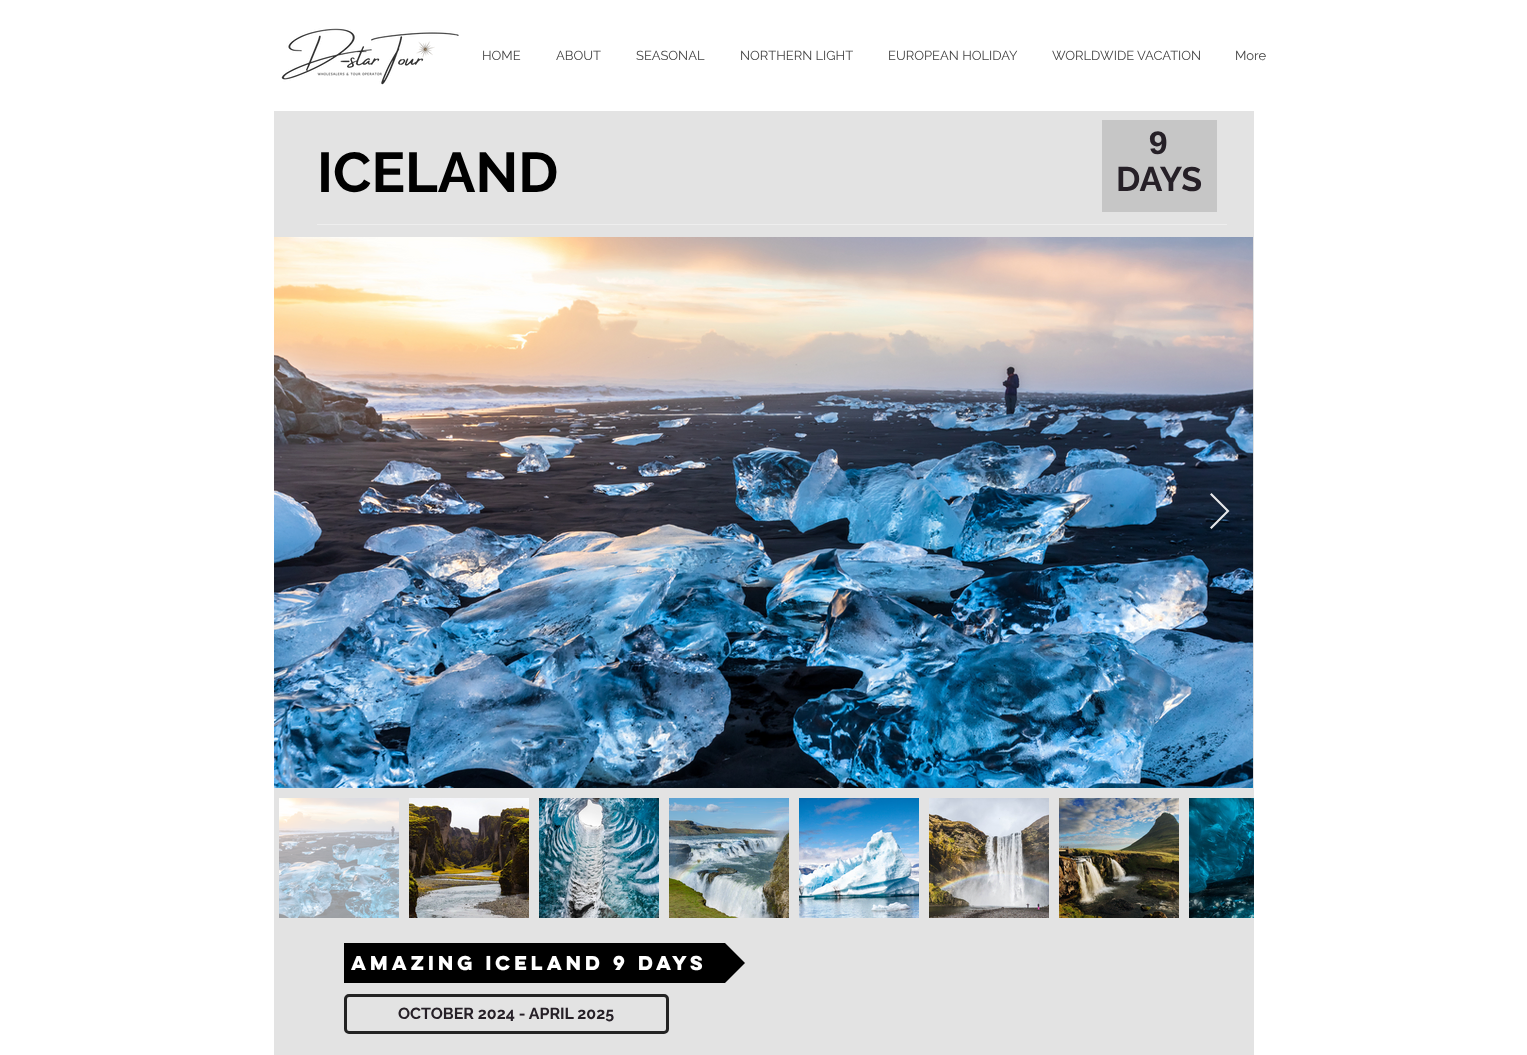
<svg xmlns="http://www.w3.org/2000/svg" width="1527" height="1055">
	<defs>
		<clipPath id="clip1"><rect x="344" y="943" width="401" height="40" /></clipPath>
	</defs>
	<rect width="100%" height="100%" fill="#FFFFFF" />
	<image x="281" y="28" width="178" height="57" href="assets/img1.png" />
	<g font-family="Raleway" font-size="13" fill="#444444">
		<text x="482" y="60">HOME</text>
		<text x="556" y="60">ABOUT</text>
		<text x="636" y="60">SEASONAL</text>
		<text x="740" y="60">NORTHERN LIGHT</text>
		<text x="888" y="60">EUROPEAN HOLIDAY</text>
		<text x="1052" y="60">WORLDWIDE VACATION</text>
		<text x="1235" y="60">More</text>
	</g>
	<rect x="274" y="111" width="980" height="944" fill="#E3E3E3" />
	<text x="317" y="192" font-family="Raleway" font-size="56" font-weight="700" fill="#000000">ICELAND</text>
	<rect x="1102" y="120" width="115" height="92" fill="#C6C6C6" />
	<text x="1148" y="154" font-family="Liberation Mono" font-size="34" font-weight="700" fill="#262027">9</text>
	<text x="1116" y="191" font-family="Raleway" font-size="34" font-weight="700" fill="#262027">DAYS</text>
	<rect x="317" y="224" width="910" height="1" fill="#EEEEEE" />
	<image x="274" y="237" width="979" height="551" href="assets/img2.png" />
	<path d="M1210 494.5L1211.5 493L1229.5 511L1211.5 529L1210 527.5L1226.5 511Z" fill="#FFFFFF" fill-opacity="0.9" />
	<image x="279" y="798" width="120" height="120" href="assets/img3.png" />
	<image x="409" y="798" width="120" height="120" href="assets/img4.png" />
	<image x="539" y="798" width="120" height="120" href="assets/img5.png" />
	<image x="669" y="798" width="120" height="120" href="assets/img6.png" />
	<image x="799" y="798" width="120" height="120" href="assets/img7.png" />
	<image x="929" y="798" width="120" height="120" href="assets/img8.png" />
	<image x="1059" y="798" width="120" height="120" href="assets/img9.png" />
	<image x="1189" y="798" width="65" height="120" href="assets/img10.png" />
	<rect x="344" y="943" width="351" height="40" fill="#000000" />
	<g clip-path="url(#clip1)">
		<path d="M745 963H695V913ZM695 963H745L695 1013Z" fill="#000000" />
	</g>
	<text x="351" y="970" font-family="'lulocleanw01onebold'" font-size="18" font-weight="700" fill="#FFFFFF">AMAZING ICELAND 9 DAYS</text>
	<rect x="345.5" y="995.5" width="322" height="37" rx="3.5" fill="none" stroke="#232323" stroke-width="3" />
	<text x="398" y="1019" font-family="Raleway" font-size="16" font-weight="700" fill="#262027">OCTOBER 2024 - APRIL 2025</text>
</svg>
